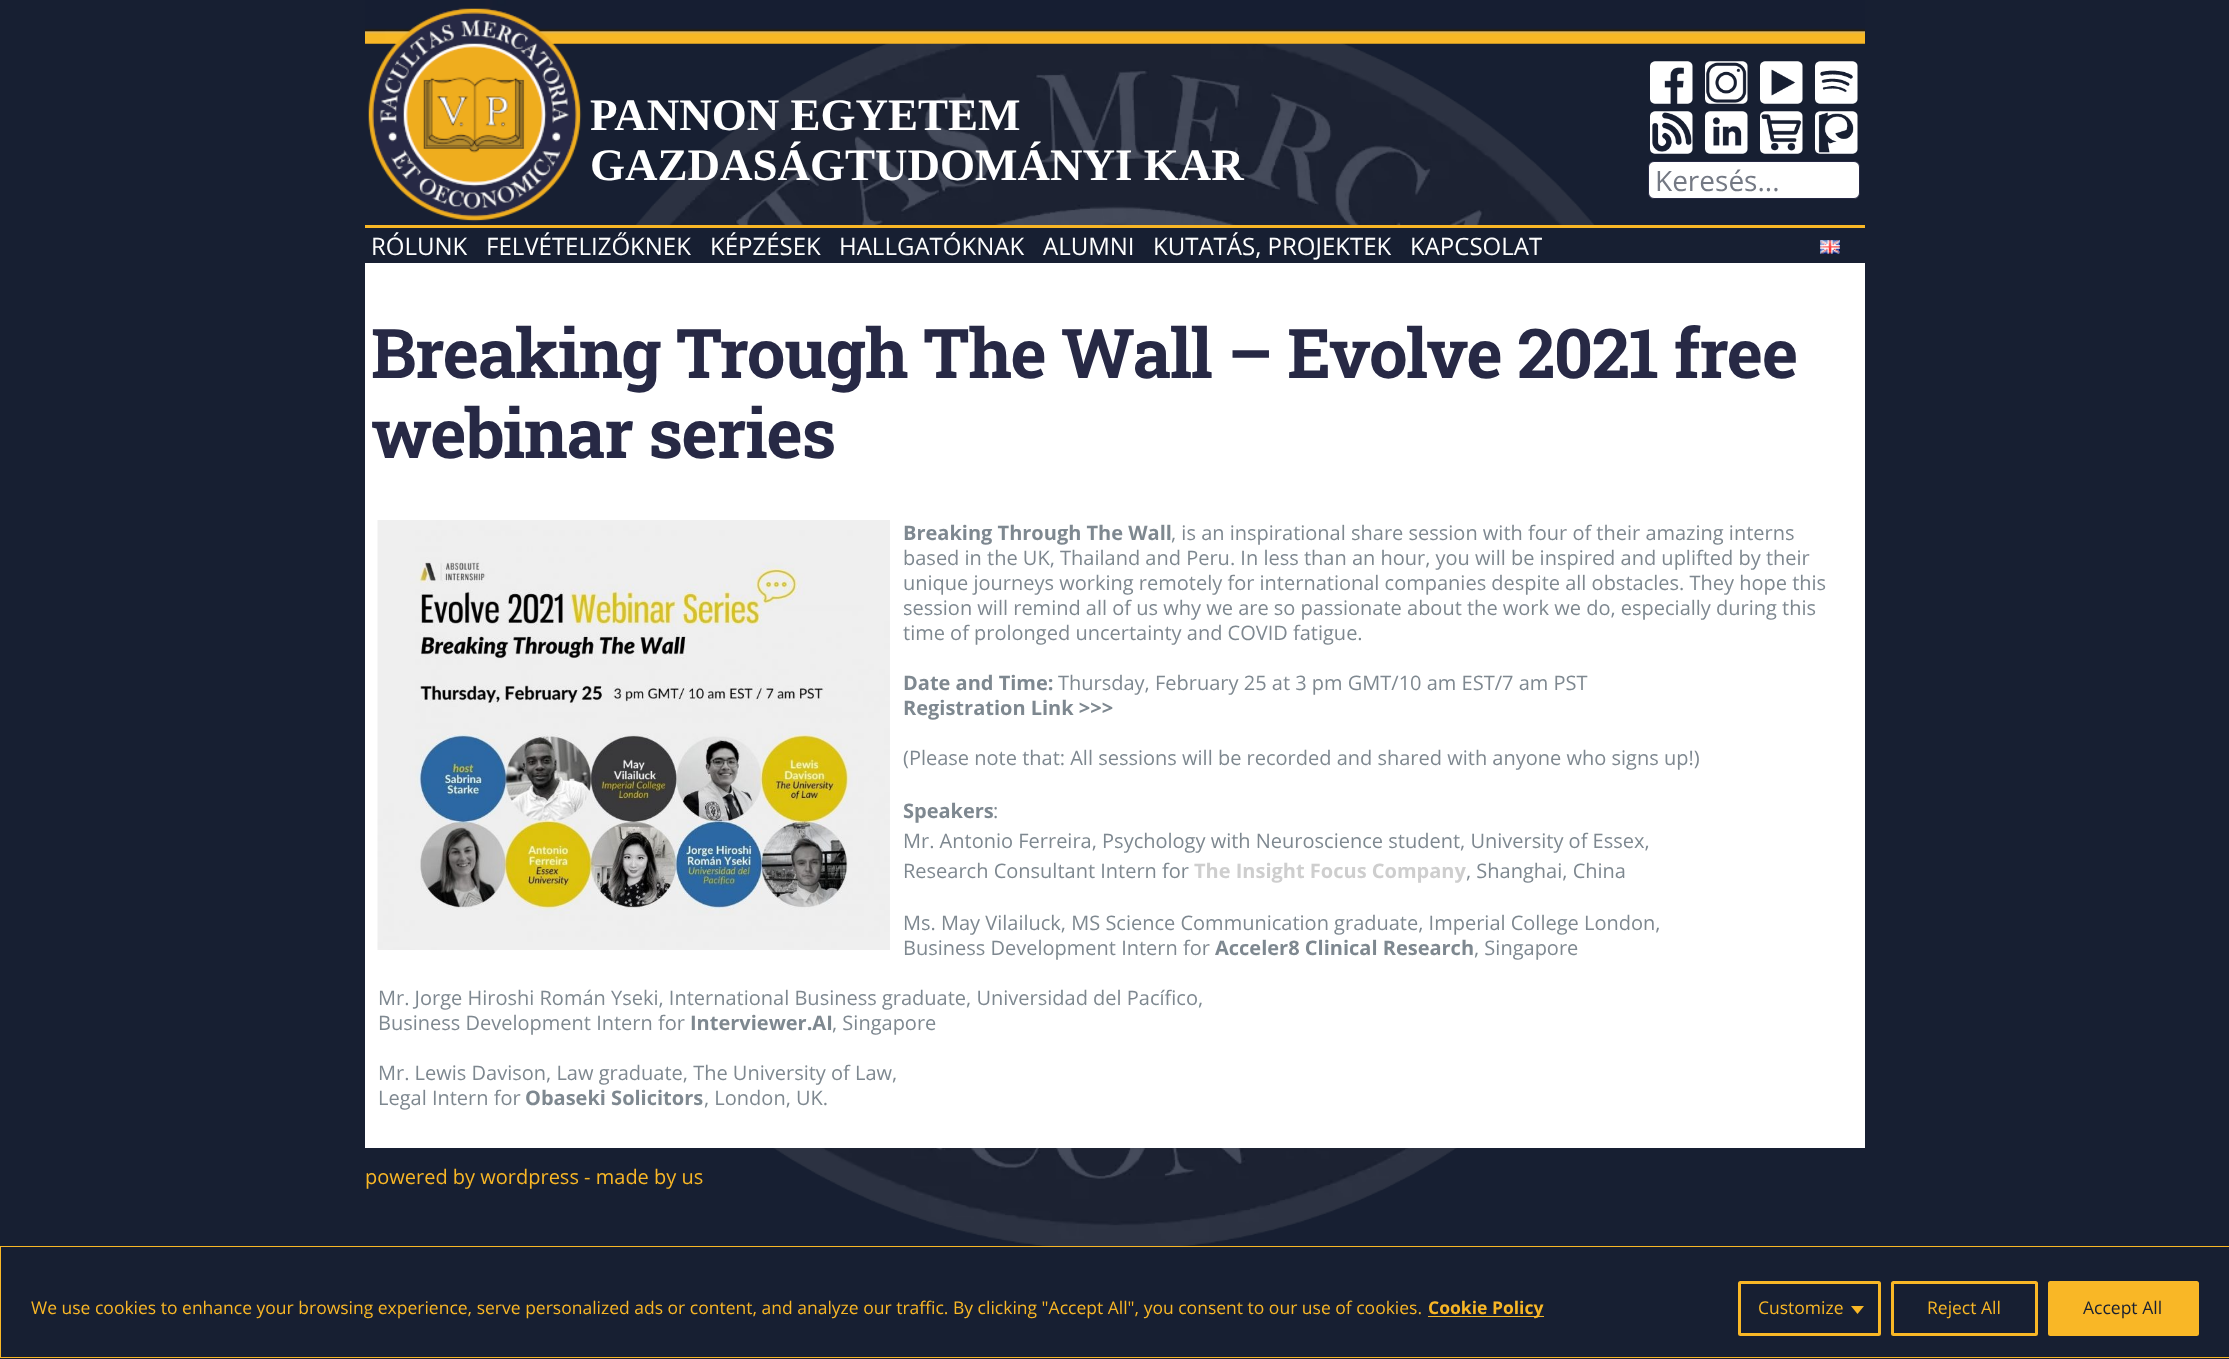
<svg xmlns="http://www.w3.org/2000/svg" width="2229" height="1359">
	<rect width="100%" height="100%" fill="#171F32" />
	<image x="635" y="43" width="960" height="1203" href="assets/img1.png" />
	<image x="365" y="0" width="1500" height="222" href="assets/img2.png" />
	<g font-family="Liberation Serif" font-size="45" font-weight="700" fill="#FFFFFF">
		<text x="590" y="130">PANNON EGYETEM</text>
		<text x="590" y="180">GAZDASÁGTUDOMÁNYI KAR</text>
	</g>
	<image x="1650" y="61" width="43" height="43" href="assets/img3.png" />
	<image x="1705" y="61" width="43" height="43" href="assets/img4.png" />
	<image x="1760" y="61" width="43" height="43" href="assets/img5.png" />
	<image x="1815" y="61" width="43" height="43" href="assets/img6.png" />
	<image x="1650" y="111" width="43" height="43" href="assets/img7.png" />
	<image x="1705" y="111" width="43" height="43" href="assets/img8.png" />
	<image x="1760" y="111" width="43" height="43" href="assets/img9.png" />
	<image x="1815" y="111" width="43" height="43" href="assets/img10.png" />
	<rect x="1648.5" y="161.5" width="211" height="37" rx="5.5" fill="#FFFFFF" stroke="#272945" />
	<text x="1655" y="191" font-family="Open Sans" font-size="28" fill="#747984">Keresés...</text>
	<rect x="635" y="228" width="960" height="35" fill="#171F32" />
	<rect x="365" y="225" width="1500" height="3" fill="#F9B726" />
	<g font-family="Open Sans" font-size="24" fill="#FFFFFF">
		<text x="371" y="255">RÓLUNK</text>
		<text x="486" y="255">FELVÉTELIZŐKNEK</text>
		<text x="710" y="255">KÉPZÉSEK</text>
		<text x="839" y="255">HALLGATÓKNAK</text>
		<text x="1043" y="255">ALUMNI</text>
		<text x="1153" y="255">KUTATÁS, PROJEKTEK</text>
		<text x="1410" y="255">KAPCSOLAT</text>
	</g>
	<image x="1820" y="240" width="20" height="14" href="assets/img11.png" />
	<rect x="365" y="263" width="1500" height="885" fill="#FFFFFF" />
	<g font-family="Roboto Slab" font-size="68.75" font-weight="700" letter-spacing="-1.25" fill="#272945">
		<text x="371" y="378">Breaking Trough The Wall – Evolve 2021 free</text>
		<text x="371" y="458">webinar series</text>
	</g>
	<image x="377" y="520" width="513" height="430" href="assets/img12.png" />
	<text x="903" y="540" font-family="Open Sans" font-size="20" font-weight="700" fill="#7E8890">Breaking Through The Wall</text>
	<g font-family="Open Sans" font-size="20" fill="#7E8890">
		<text x="1171" y="540">, is an inspirational share session with four of their amazing interns</text>
		<text x="903" y="565">based in the UK, Thailand and Peru. In less than an hour, you will be inspired and uplifted by their</text>
		<text x="903" y="590">unique journeys working remotely for international companies despite all obstacles. They hope this</text>
		<text x="903" y="615">session will remind all of us why we are so passionate about the work we do, especially during this</text>
		<text x="903" y="640">time of prolonged uncertainty and COVID fatigue.</text>
	</g>
	<text x="903" y="690" font-family="Open Sans" font-size="20" font-weight="700" fill="#7E8890">Date and Time:</text>
	<text x="1058" y="690" font-family="Open Sans" font-size="20" fill="#7E8890">Thursday, February 25 at 3 pm GMT/10 am EST/7 am PST</text>
	<text x="903" y="715" font-family="Open Sans" font-size="20" font-weight="700" fill="#7E8890">Registration Link &gt;&gt;&gt;</text>
	<text x="903" y="765" font-family="Open Sans" font-size="20" fill="#7E8890">(Please note that: All sessions will be recorded and shared with anyone who signs up!)</text>
	<text x="903" y="818" font-family="Open Sans" font-size="20" font-weight="700" fill="#7E8890">Speakers</text>
	<g font-family="Open Sans" font-size="20" fill="#7E8890">
		<text x="993" y="818">:</text>
		<text x="903" y="848">Mr. Antonio Ferreira, Psychology with Neuroscience student, University of Essex,</text>
		<text x="903" y="878">Research Consultant Intern for</text>
	</g>
	<text x="1194" y="878" font-family="Open Sans" font-size="20" font-weight="700" fill="#CECECE">The Insight Focus Company</text>
	<g font-family="Open Sans" font-size="20" fill="#7E8890">
		<text x="1466" y="878">, Shanghai, China</text>
		<text x="903" y="930">Ms. May Vilailuck, MS Science Communication graduate, Imperial College London,</text>
		<text x="903" y="955">Business Development Intern for</text>
	</g>
	<text x="1215" y="955" font-family="Open Sans" font-size="20" font-weight="700" fill="#7E8890">Acceler8 Clinical Research</text>
	<g font-family="Open Sans" font-size="20" fill="#7E8890">
		<text x="1474" y="955">, Singapore</text>
		<text x="378" y="1005">Mr. Jorge Hiroshi Román Yseki, International Business graduate, Universidad del Pacífico,</text>
		<text x="378" y="1030">Business Development Intern for</text>
	</g>
	<text x="690" y="1030" font-family="Open Sans" font-size="20" font-weight="700" fill="#7E8890">Interviewer.AI</text>
	<g font-family="Open Sans" font-size="20" fill="#7E8890">
		<text x="832" y="1030">, Singapore</text>
		<text x="378" y="1080">Mr. Lewis Davison, Law graduate, The University of Law,</text>
		<text x="378" y="1105">Legal Intern for</text>
	</g>
	<text x="525" y="1105" font-family="Open Sans" font-size="20" font-weight="700" fill="#7E8890">Obaseki Solicitors</text>
	<text x="704" y="1105" font-family="Open Sans" font-size="20" fill="#7E8890">, London, UK.</text>
	<text x="365" y="1184" font-family="Open Sans" font-size="20" fill="#F9B726">powered by wordpress - made by us</text>
	<rect x="0.5" y="1246.5" width="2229" height="111" fill="none" stroke="#F9B726" />
	<text x="31" y="1314" font-family="Open Sans" font-size="17.5" fill="#F9B726">We use cookies to enhance your browsing experience, serve personalized ads or content, and analyze our traffic. By clicking "Accept All", you consent to our use of cookies.</text>
	<rect x="1428" y="1316" width="116" height="1" fill="#F9B726" />
	<text x="1428" y="1314" font-family="Open Sans" font-size="17.5" font-weight="700" fill="#F9B726">Cookie Policy</text>
	<rect x="1739.5" y="1282.5" width="140" height="52" rx="1" fill="none" stroke="#F9B726" stroke-width="3" />
	<text x="1758" y="1314" font-family="Open Sans" font-size="17.5" fill="#F9B726">Customize</text>
	<path d="M1851 1306H1864L1857.5 1314Z" fill="#F9B726" />
	<rect x="1892.5" y="1282.5" width="144" height="52" rx="1" fill="none" stroke="#F9B726" stroke-width="3" />
	<text x="1927" y="1314" font-family="Open Sans" font-size="17.5" fill="#F9B726">Reject All</text>
	<rect x="2049.5" y="1282.5" width="148" height="52" rx="1" fill="#F9B726" stroke="#F9B726" stroke-width="3" />
	<text x="2083" y="1314" font-family="Open Sans" font-size="17.5" fill="#171F32">Accept All</text>
</svg>
